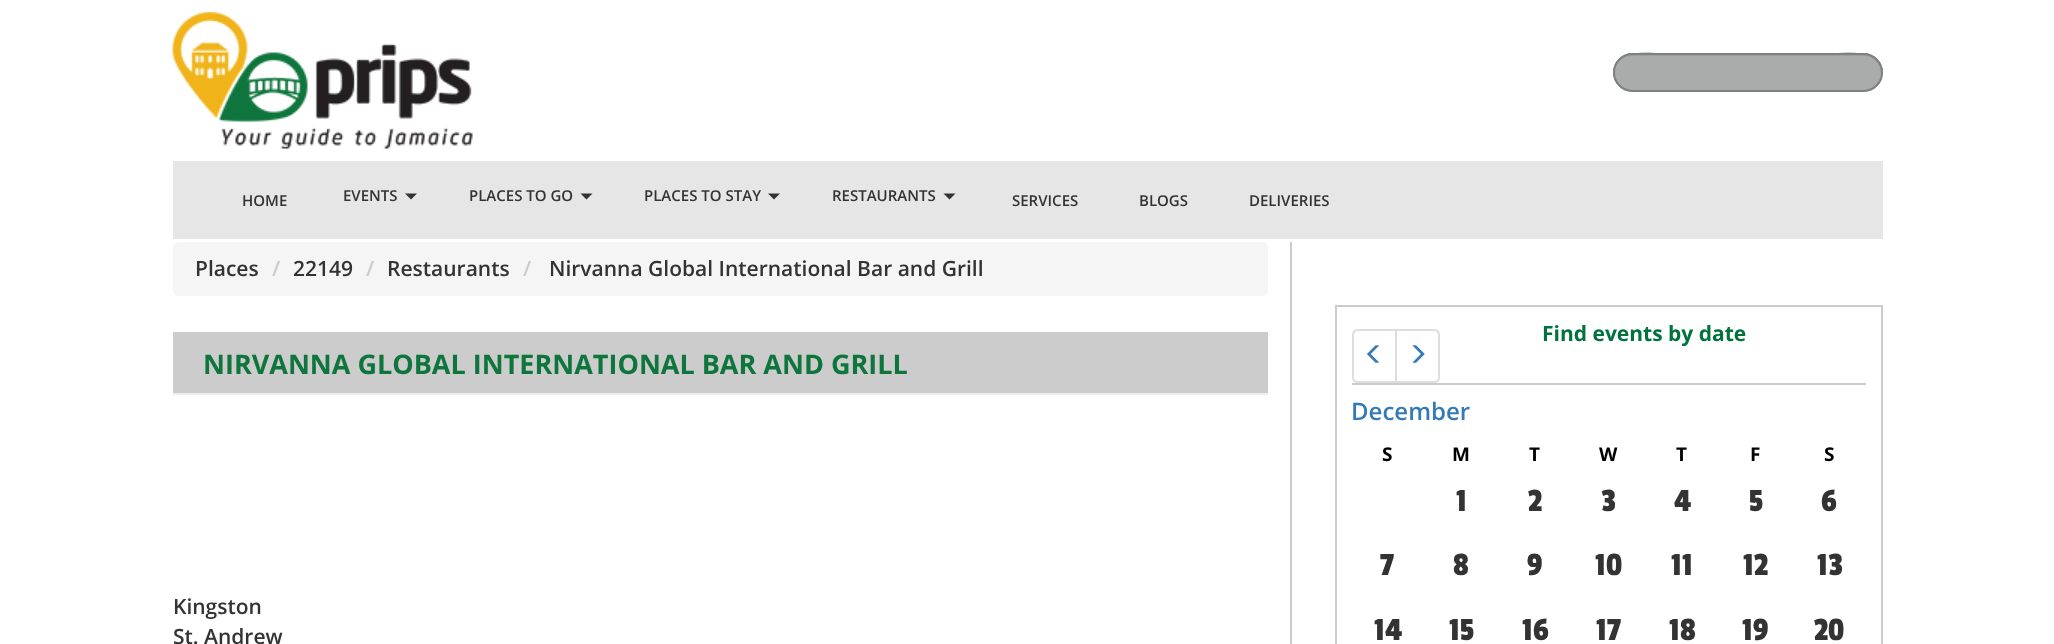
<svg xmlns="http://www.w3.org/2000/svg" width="2054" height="644">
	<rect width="100%" height="100%" fill="#FFFFFF" />
	<image x="172" y="12" width="301" height="137" href="assets/img1.png" />
	<rect x="1613" y="53" width="270" height="39" rx="19.5" fill="#AAACAC" />
	<path d="M1632 56H1863C1873 56 1880 63 1881 73C1883 45 1836 54 1824 54H1670C1659 54 1612 45 1614 73C1615 63 1622 56 1632 56Z" fill="#9D9F9F" />
	<rect x="1614" y="54" width="268" height="37" rx="18.5" fill="none" stroke="#808080" stroke-width="2" />
	<rect x="173" y="161" width="1710" height="78" fill="#E6E6E6" />
	<g font-family="Open Sans" font-size="15" font-weight="600" fill="#333333">
		<text x="242" y="206">HOME</text>
		<text x="343" y="201">EVENTS</text>
	</g>
	<path d="M405 193.5H417L411 199.5Z" fill="#333333" />
	<text x="469" y="201" font-family="Open Sans" font-size="15" font-weight="600" fill="#333333">PLACES TO GO</text>
	<path d="M580.5 193.5H592.5L586.5 199.5Z" fill="#333333" />
	<text x="644" y="201" font-family="Open Sans" font-size="15" font-weight="600" fill="#333333">PLACES TO STAY</text>
	<path d="M768 193.5H780L774 199.5Z" fill="#333333" />
	<text x="832" y="201" font-family="Open Sans" font-size="15" font-weight="600" fill="#333333">RESTAURANTS</text>
	<path d="M943.5 193.5H955.5L949.5 199.5Z" fill="#333333" />
	<g font-family="Open Sans" font-size="15" font-weight="600" fill="#333333">
		<text x="1012" y="206">SERVICES</text>
		<text x="1139" y="206">BLOGS</text>
		<text x="1249" y="206">DELIVERIES</text>
	</g>
	<rect x="1290" y="242" width="2" height="402" fill="#CCCCCC" />
	<rect x="173" y="242" width="1095" height="54" rx="6" fill="#F5F5F5" />
	<text x="195" y="276" font-family="Open Sans" font-size="21" font-weight="600" fill="#333333">Places</text>
	<text x="272" y="276" font-family="Open Sans" font-size="21" font-weight="600" fill="#CCCCCC">/</text>
	<text x="293" y="276" font-family="Open Sans" font-size="21" font-weight="600" fill="#333333">22149</text>
	<text x="366" y="276" font-family="Open Sans" font-size="21" font-weight="600" fill="#CCCCCC">/</text>
	<text x="387" y="276" font-family="Open Sans" font-size="21" font-weight="600" fill="#333333">Restaurants</text>
	<text x="523" y="276" font-family="Open Sans" font-size="21" font-weight="600" fill="#CCCCCC">/</text>
	<text x="549" y="276" font-family="Open Sans" font-size="21" font-weight="600" fill="#333333">Nirvanna Global International Bar and Grill</text>
	<rect x="173" y="332" width="1095" height="61" fill="#CCCCCC" />
	<rect x="173" y="393" width="1095" height="2" fill="#EEEEEE" />
	<text x="203" y="374" font-family="Open Sans" font-size="27" font-weight="700" fill="#0E753C">NIRVANNA GLOBAL INTERNATIONAL BAR AND GRILL</text>
	<g font-family="Open Sans" font-size="21" font-weight="600" fill="#333333">
		<text x="173" y="614">Kingston</text>
		<text x="173" y="644">St. Andrew</text>
	</g>
	<rect x="1336" y="306" width="546" height="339" fill="none" stroke="#CCCCCC" stroke-width="2" />
	<text x="1542" y="341" font-family="Open Sans" font-size="21" font-weight="700" fill="#00733D">Find events by date</text>
	<rect x="1352" y="383" width="514" height="2" fill="#CCCCCC" />
	<path d="M1358 330H1396V382H1358C1355 382 1353 380 1353 377V335C1353 332 1355 330 1358 330Z" fill="none" stroke="#DDDDDD" stroke-width="2" />
	<image x="1367" y="345" width="12" height="18" href="assets/img2.png" />
	<path d="M1396 330H1434C1437 330 1439 332 1439 335V377C1439 380 1437 382 1434 382H1396Z" fill="#FFFFFF" stroke="#DDDDDD" stroke-width="2" />
	<image x="1412" y="345" width="13" height="18" href="assets/img3.png" />
	<text x="1351" y="420" font-family="Open Sans" font-size="24" font-weight="600" fill="#337AB7">December</text>
	<g font-family="Open Sans" font-size="19" font-weight="700" fill="#000000">
		<text x="1382" y="461">S</text>
		<text x="1452" y="461">M</text>
		<text x="1529" y="461">T</text>
		<text x="1599" y="461">W</text>
		<text x="1676" y="461">T</text>
		<text x="1750" y="461">F</text>
		<text x="1824" y="461">S</text>
	</g>
	<g font-family="Passion One" font-size="34" fill="#333333">
		<text x="1456" y="511">1</text>
		<text x="1528" y="511">2</text>
		<text x="1601" y="511">3</text>
		<text x="1674" y="511">4</text>
		<text x="1749" y="511">5</text>
		<text x="1821" y="511">6</text>
		<text x="1380" y="575">7</text>
		<text x="1453" y="575">8</text>
		<text x="1527" y="575">9</text>
		<text x="1595" y="575">10</text>
		<text x="1671" y="575">11</text>
		<text x="1743" y="575">12</text>
		<text x="1817" y="575">13</text>
		<text x="1374" y="640">14</text>
		<text x="1449" y="640">15</text>
		<text x="1522" y="640">16</text>
		<text x="1596" y="640">17</text>
		<text x="1669" y="640">18</text>
		<text x="1742" y="640">19</text>
		<text x="1814" y="640">20</text>
	</g>
</svg>
